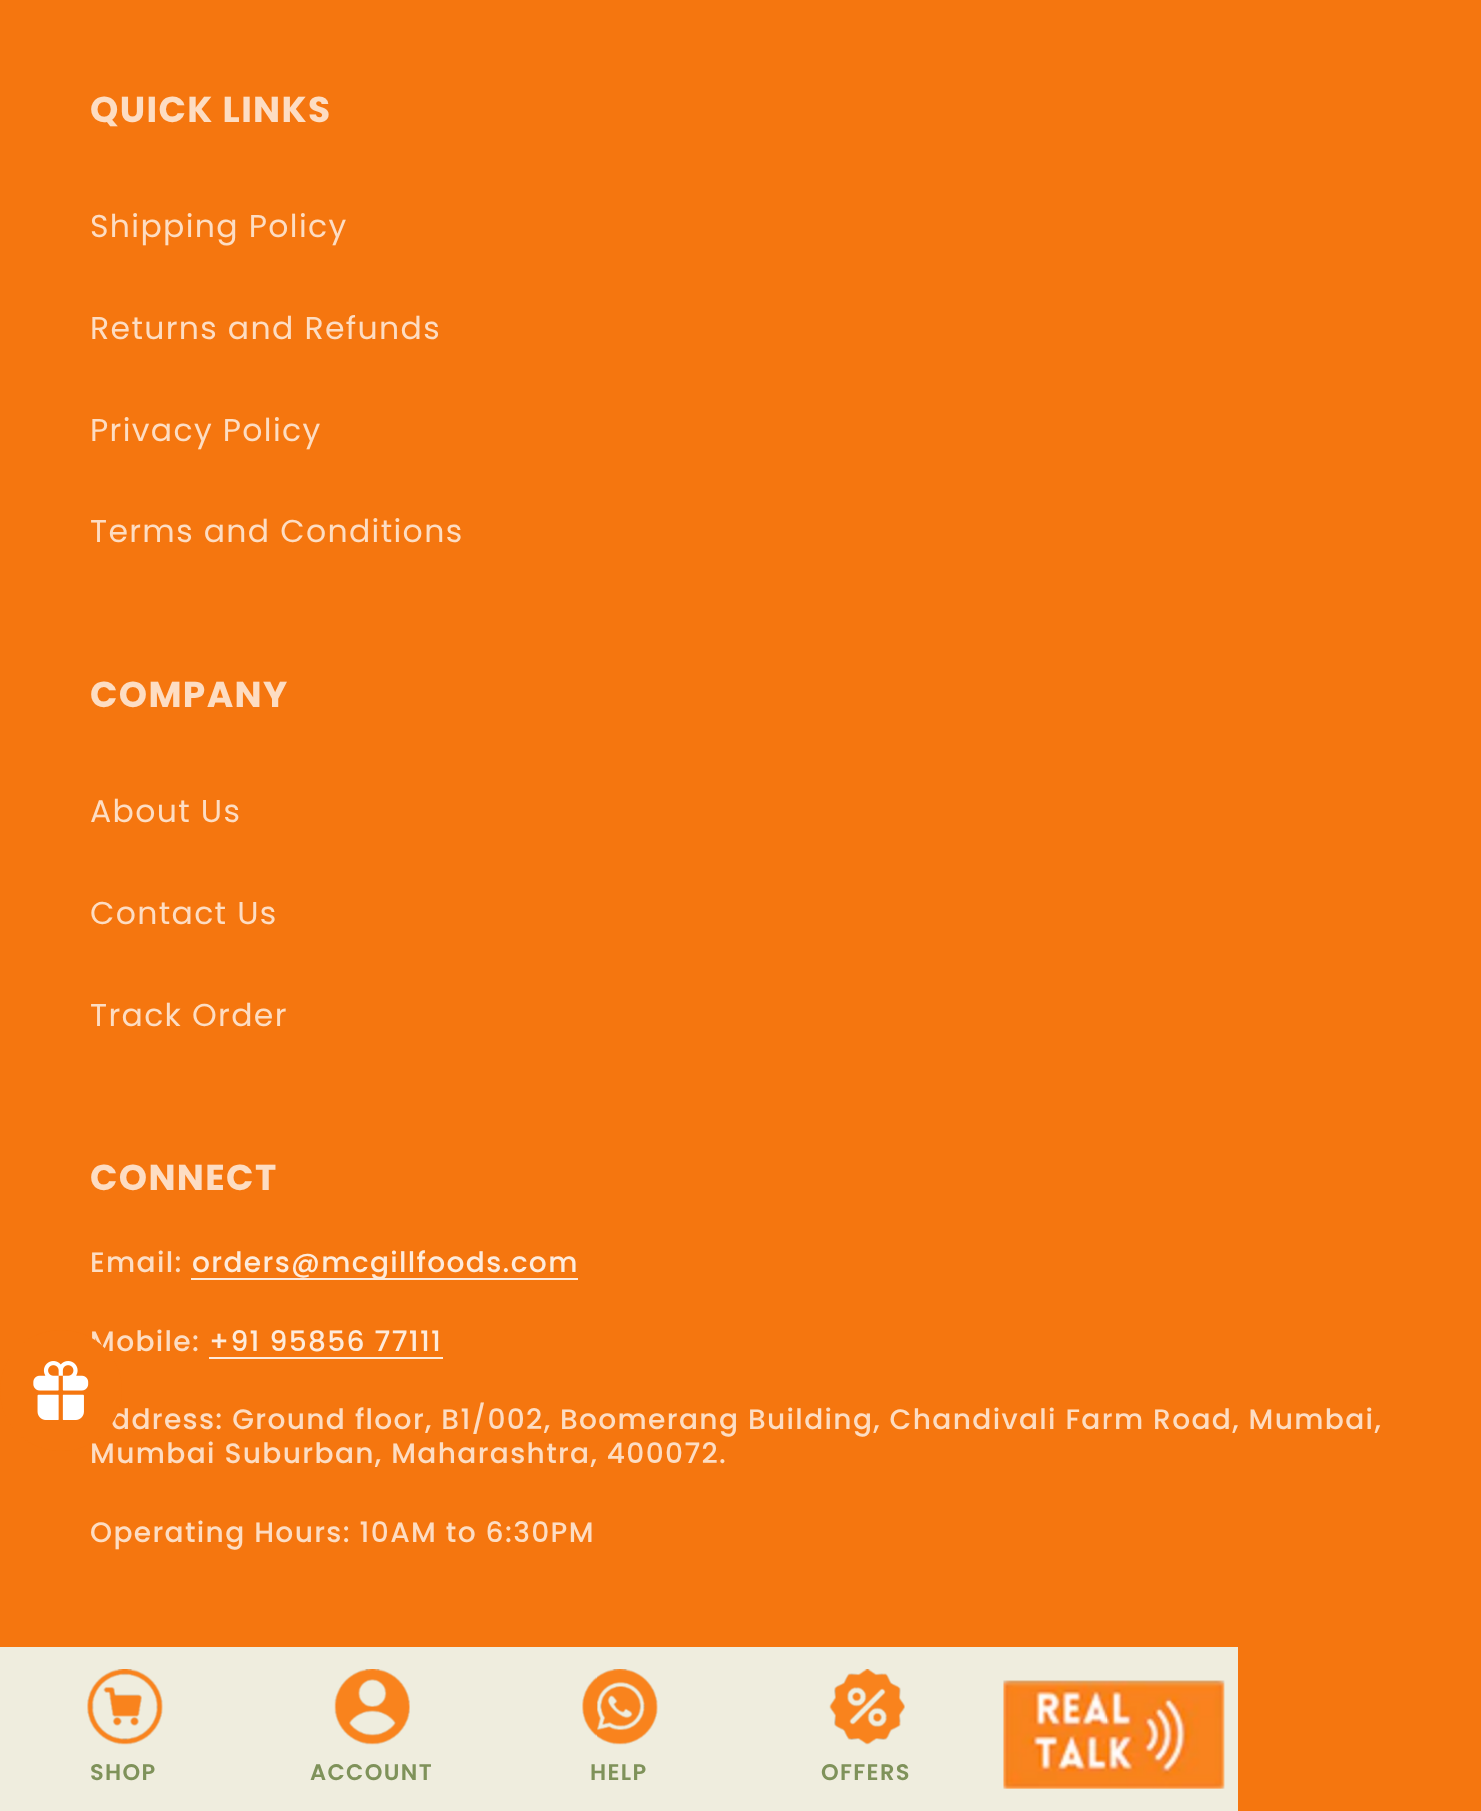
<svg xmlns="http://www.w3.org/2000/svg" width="1481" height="1811">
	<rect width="100%" height="100%" fill="#F5760F" />
	<g font-family="Poppins" font-size="28.1" font-weight="500" letter-spacing="1.35" fill="#FDDDC3">
		<text x="90" y="1351">Mobile:</text>
		<text x="111" y="1429">ddress: Ground floor, B1/002, Boomerang Building, Chandivali Farm Road, Mumbai,</text>
		<text x="90" y="1463">Mumbai Suburban, Maharashtra, 400072.</text>
	</g>
	<rect x="0" y="1330" width="122" height="121" rx="60.5" fill="#F5760F" />
	<image x="33" y="1361" width="56" height="59" href="assets/img1.png" />
	<text x="90" y="122" font-family="Poppins" font-size="36" font-weight="700" letter-spacing="1.35" fill="#FDDDC3">QUICK LINKS</text>
	<g font-family="Poppins" font-size="31.5" letter-spacing="1.35" fill="#FDDDC3">
		<text x="90" y="237">Shipping Policy</text>
		<text x="90" y="339">Returns and Refunds</text>
		<text x="90" y="441">Privacy Policy</text>
		<text x="90" y="542">Terms and Conditions</text>
	</g>
	<text x="90" y="707" font-family="Poppins" font-size="36" font-weight="700" letter-spacing="1.35" fill="#FDDDC3">COMPANY</text>
	<g font-family="Poppins" font-size="31.5" letter-spacing="1.35" fill="#FDDDC3">
		<text x="90" y="822">About Us</text>
		<text x="90" y="924">Contact Us</text>
		<text x="90" y="1026">Track Order</text>
	</g>
	<text x="90" y="1190" font-family="Poppins" font-size="36" font-weight="700" letter-spacing="1.35" fill="#FDDDC3">CONNECT</text>
	<text x="90" y="1272" font-family="Poppins" font-size="28.1" font-weight="500" letter-spacing="1.35" fill="#FDDDC3">Email:</text>
	<rect x="191" y="1278" width="387" height="2" fill="#FEEADB" />
	<g font-family="Poppins" font-size="28.1" font-weight="500" letter-spacing="1.35" fill="#FEEBDB">
		<text x="192" y="1272">orders@mcgillfoods.com</text>
		<text x="209" y="1351">+91 95856 77111</text>
	</g>
	<rect x="209" y="1357" width="234" height="2" fill="#FEEADB" />
	<text x="90" y="1542" font-family="Poppins" font-size="28.1" font-weight="500" letter-spacing="1.35" fill="#FDDDC3">Operating Hours: 10AM to 6:30PM</text>
	<rect x="0" y="1647" width="1238" height="164" fill="#EFEDDE" />
	<image x="87" y="1669" width="76" height="76" href="assets/img2.png" />
	<text x="90" y="1780" font-family="Poppins" font-size="22.5" font-weight="600" letter-spacing="1.35" fill="#7F925A">SHOP</text>
	<image x="334" y="1669" width="76" height="76" href="assets/img3.png" />
	<text x="310" y="1780" font-family="Poppins" font-size="22.5" font-weight="600" letter-spacing="1.35" fill="#7F925A">ACCOUNT</text>
	<image x="582" y="1669" width="76" height="76" href="assets/img4.png" />
	<text x="590" y="1780" font-family="Poppins" font-size="22.5" font-weight="600" letter-spacing="1.35" fill="#7F925A">HELP</text>
	<image x="829" y="1669" width="76" height="76" href="assets/img5.png" />
	<text x="821" y="1780" font-family="Poppins" font-size="22.5" font-weight="600" letter-spacing="1.35" fill="#7F925A">OFFERS</text>
	<image x="1003" y="1680" width="222" height="109" href="assets/img6.png" />
</svg>
